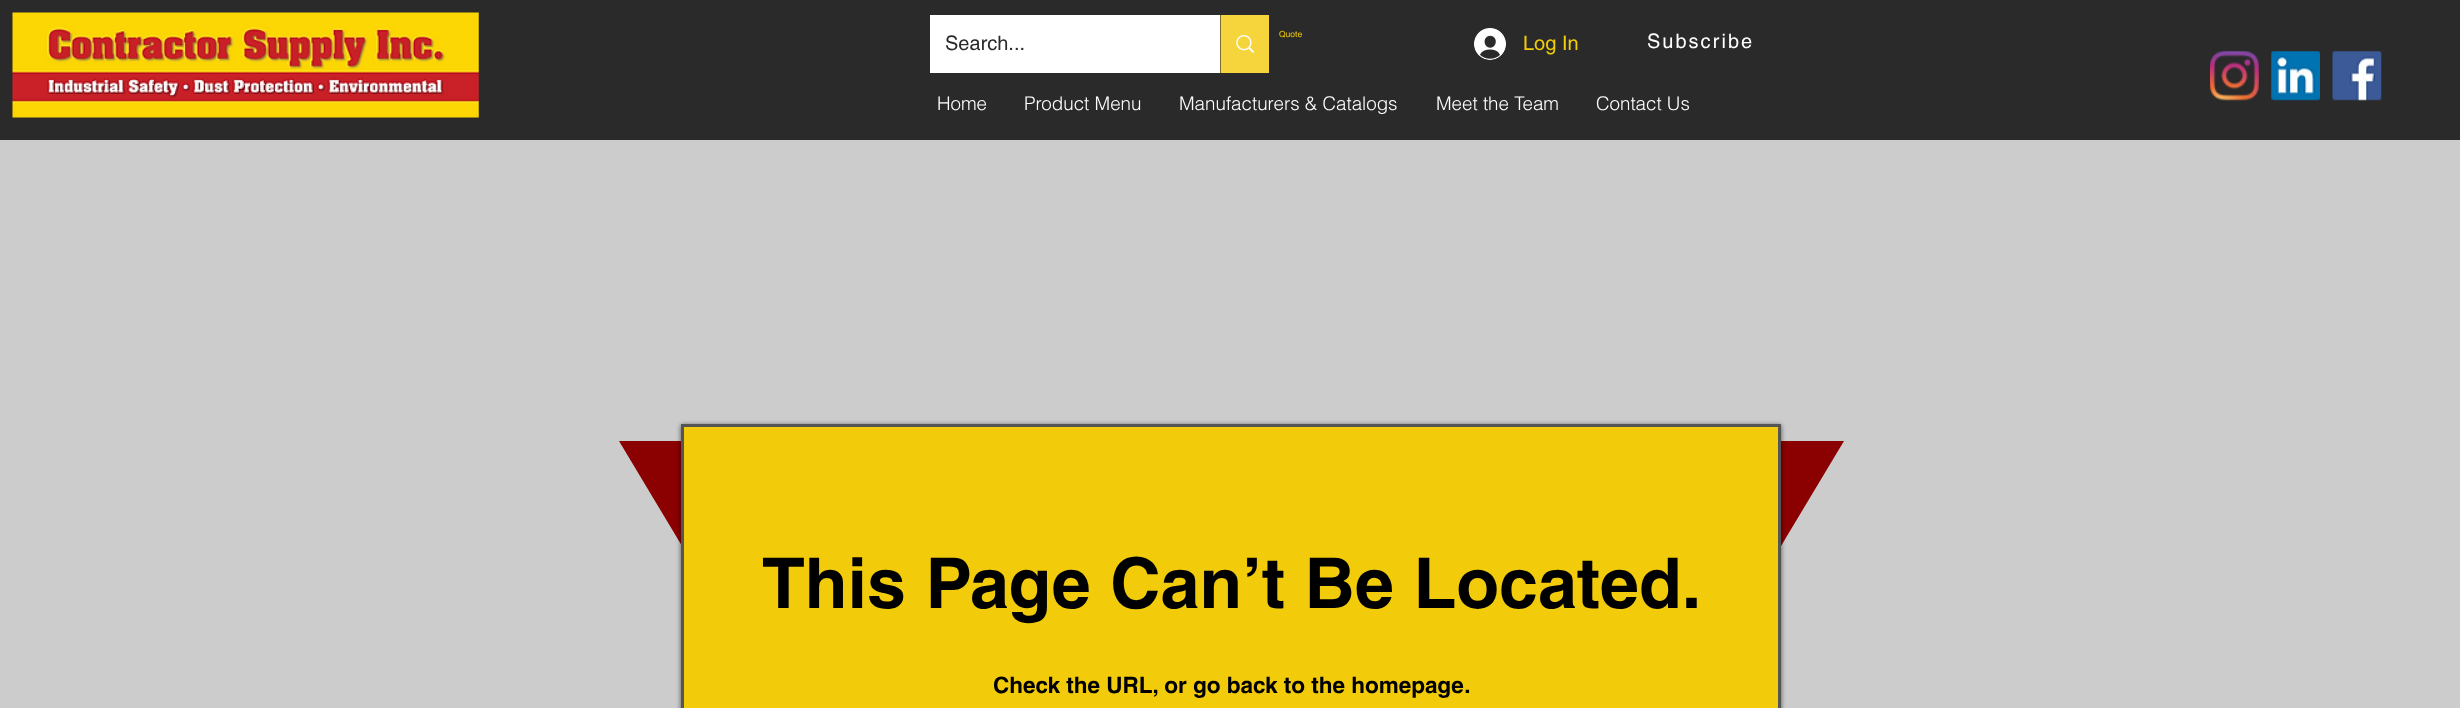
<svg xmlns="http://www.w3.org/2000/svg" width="2460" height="708">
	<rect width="100%" height="100%" fill="#CCCCCC" />
	<rect x="0" y="0" width="2460" height="140" fill="#2A2A2A" />
	<image x="12" y="12" width="467" height="106" href="assets/img1.png" />
	<rect x="930" y="15" width="290" height="58" fill="#FFFFFF" />
	<text x="945" y="50" font-family="helvetica" font-size="20" fill="#2A2A2A">Search...</text>
	<rect x="1221" y="15" width="48" height="58" fill="#F5D53B" />
	<rect x="1220" y="15" width="1" height="58" fill="#7B6E31" />
	<image x="1236" y="35" width="18" height="18" href="assets/img2.png" />
	<text x="1279" y="37" font-family="helvetica" font-size="8.5" fill="#F2CB0A">Quote</text>
	<image x="1474" y="28" width="32" height="32" href="assets/img3.png" />
	<text x="1523" y="50" font-family="helvetica" font-size="20" fill="#F2CB0A">Log In</text>
	<text x="1647" y="48" font-family="helvetica" font-size="20" letter-spacing="2" fill="#FFFFFF">Subscribe</text>
	<g font-family="helvetica" font-size="18.75" font-weight="300" fill="#FFFFFF">
		<text x="937" y="110">Home</text>
		<text x="1024" y="110">Product Menu</text>
		<text x="1179" y="110">Manufacturers &amp; Catalogs</text>
		<text x="1436" y="110">Meet the Team</text>
		<text x="1596" y="110">Contact Us</text>
	</g>
	<image x="2210" y="51" width="49" height="50" href="assets/img4.png" />
	<image x="2271" y="51" width="49" height="50" href="assets/img5.png" />
	<image x="2332" y="51" width="50" height="50" href="assets/img6.png" />
	<path d="M619 441H706V566H694Z" fill="#8B0000" />
	<path d="M1756 441H1844L1769 566H1756Z" fill="#8B0000" />
	<rect x="681" y="425" width="1100" height="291" fill="#000000" fill-opacity="0.6" filter="blur(2.5px)" />
	<rect x="682.5" y="425.5" width="1097" height="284" fill="#F2CB0A" stroke="#555555" stroke-width="3" />
	<text x="762" y="608" font-family="helvetica" font-size="70" font-weight="700" fill="#000000">This Page Can’t Be Located.</text>
	<text x="993" y="693" font-family="helvetica" font-size="22.5" font-weight="700" fill="#000000">Check the URL, or go back to the homepage.</text>
</svg>
